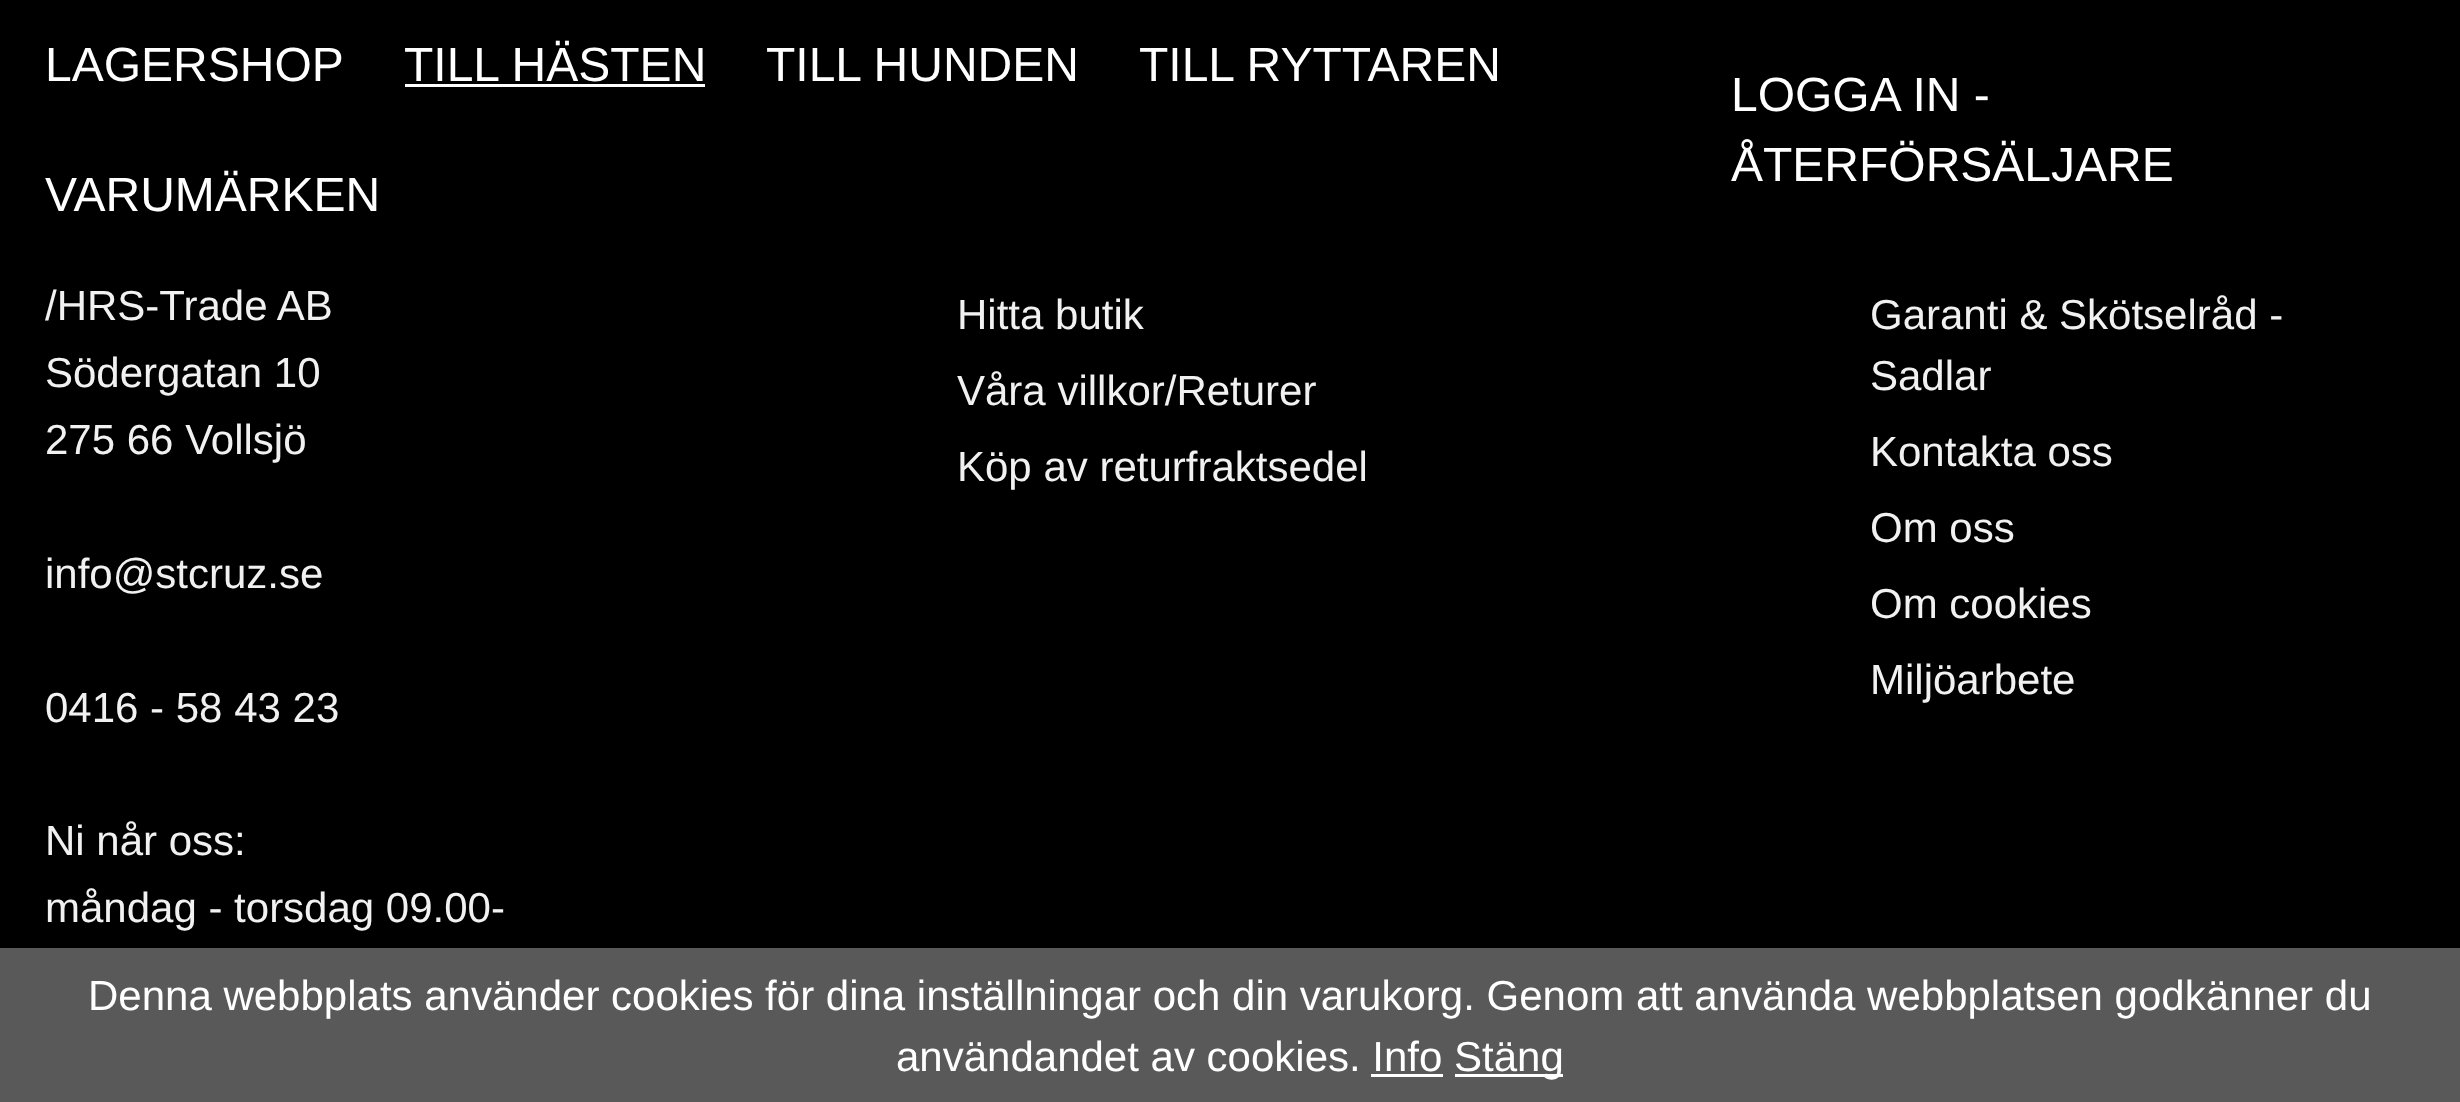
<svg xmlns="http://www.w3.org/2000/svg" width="2460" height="1102">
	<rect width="100%" height="100%" fill="#000000" />
	<g font-family="Liberation Sans" font-size="48" fill="#FFFFFF">
		<text x="45" y="81">LAGERSHOP</text>
		<text x="404" y="81">TILL HÄSTEN</text>
	</g>
	<rect x="405" y="84" width="300" height="3" fill="#FFFFFF" />
	<g font-family="Liberation Sans" font-size="48" fill="#FFFFFF">
		<text x="766" y="81">TILL HUNDEN</text>
		<text x="1139" y="81">TILL RYTTAREN</text>
		<text x="45" y="211">VARUMÄRKEN</text>
		<text x="1731" y="111">LOGGA IN -</text>
		<text x="1731" y="181">ÅTERFÖRSÄLJARE</text>
	</g>
	<g font-family="Liberation Sans" font-size="42" fill="#F1F1F1">
		<text x="45" y="320">/HRS-Trade AB</text>
		<text x="45" y="387">Södergatan 10</text>
		<text x="45" y="454">275 66 Vollsjö</text>
		<text x="45" y="588">info@stcruz.se</text>
		<text x="45" y="722">0416 - 58 43 23</text>
		<text x="45" y="855">Ni når oss:</text>
		<text x="45" y="922">måndag - torsdag 09.00-</text>
		<text x="957" y="329">Hitta butik</text>
		<text x="957" y="405">Våra villkor/Returer</text>
		<text x="957" y="481">Köp av returfraktsedel</text>
		<text x="1870" y="329">Garanti &amp; Skötselråd -</text>
		<text x="1870" y="390">Sadlar</text>
		<text x="1870" y="466">Kontakta oss</text>
		<text x="1870" y="542">Om oss</text>
		<text x="1870" y="618">Om cookies</text>
		<text x="1870" y="694">Miljöarbete</text>
	</g>
	<rect x="0" y="948" width="2460" height="154" fill="#595959" />
	<g font-family="Liberation Sans" font-size="42" fill="#FFFFFF">
		<text x="88" y="1010">Denna webbplats använder cookies för dina inställningar och din varukorg. Genom att använda webbplatsen godkänner du</text>
		<text x="896" y="1071">användandet av cookies. Info</text>
	</g>
	<rect x="1455" y="1074" width="108" height="3" fill="#FFFFFF" />
	<text x="1454" y="1071" font-family="Liberation Sans" font-size="42" fill="#FFFFFF">Stäng</text>
	<rect x="1371" y="1074" width="72" height="3" fill="#FFFFFF" />
</svg>
